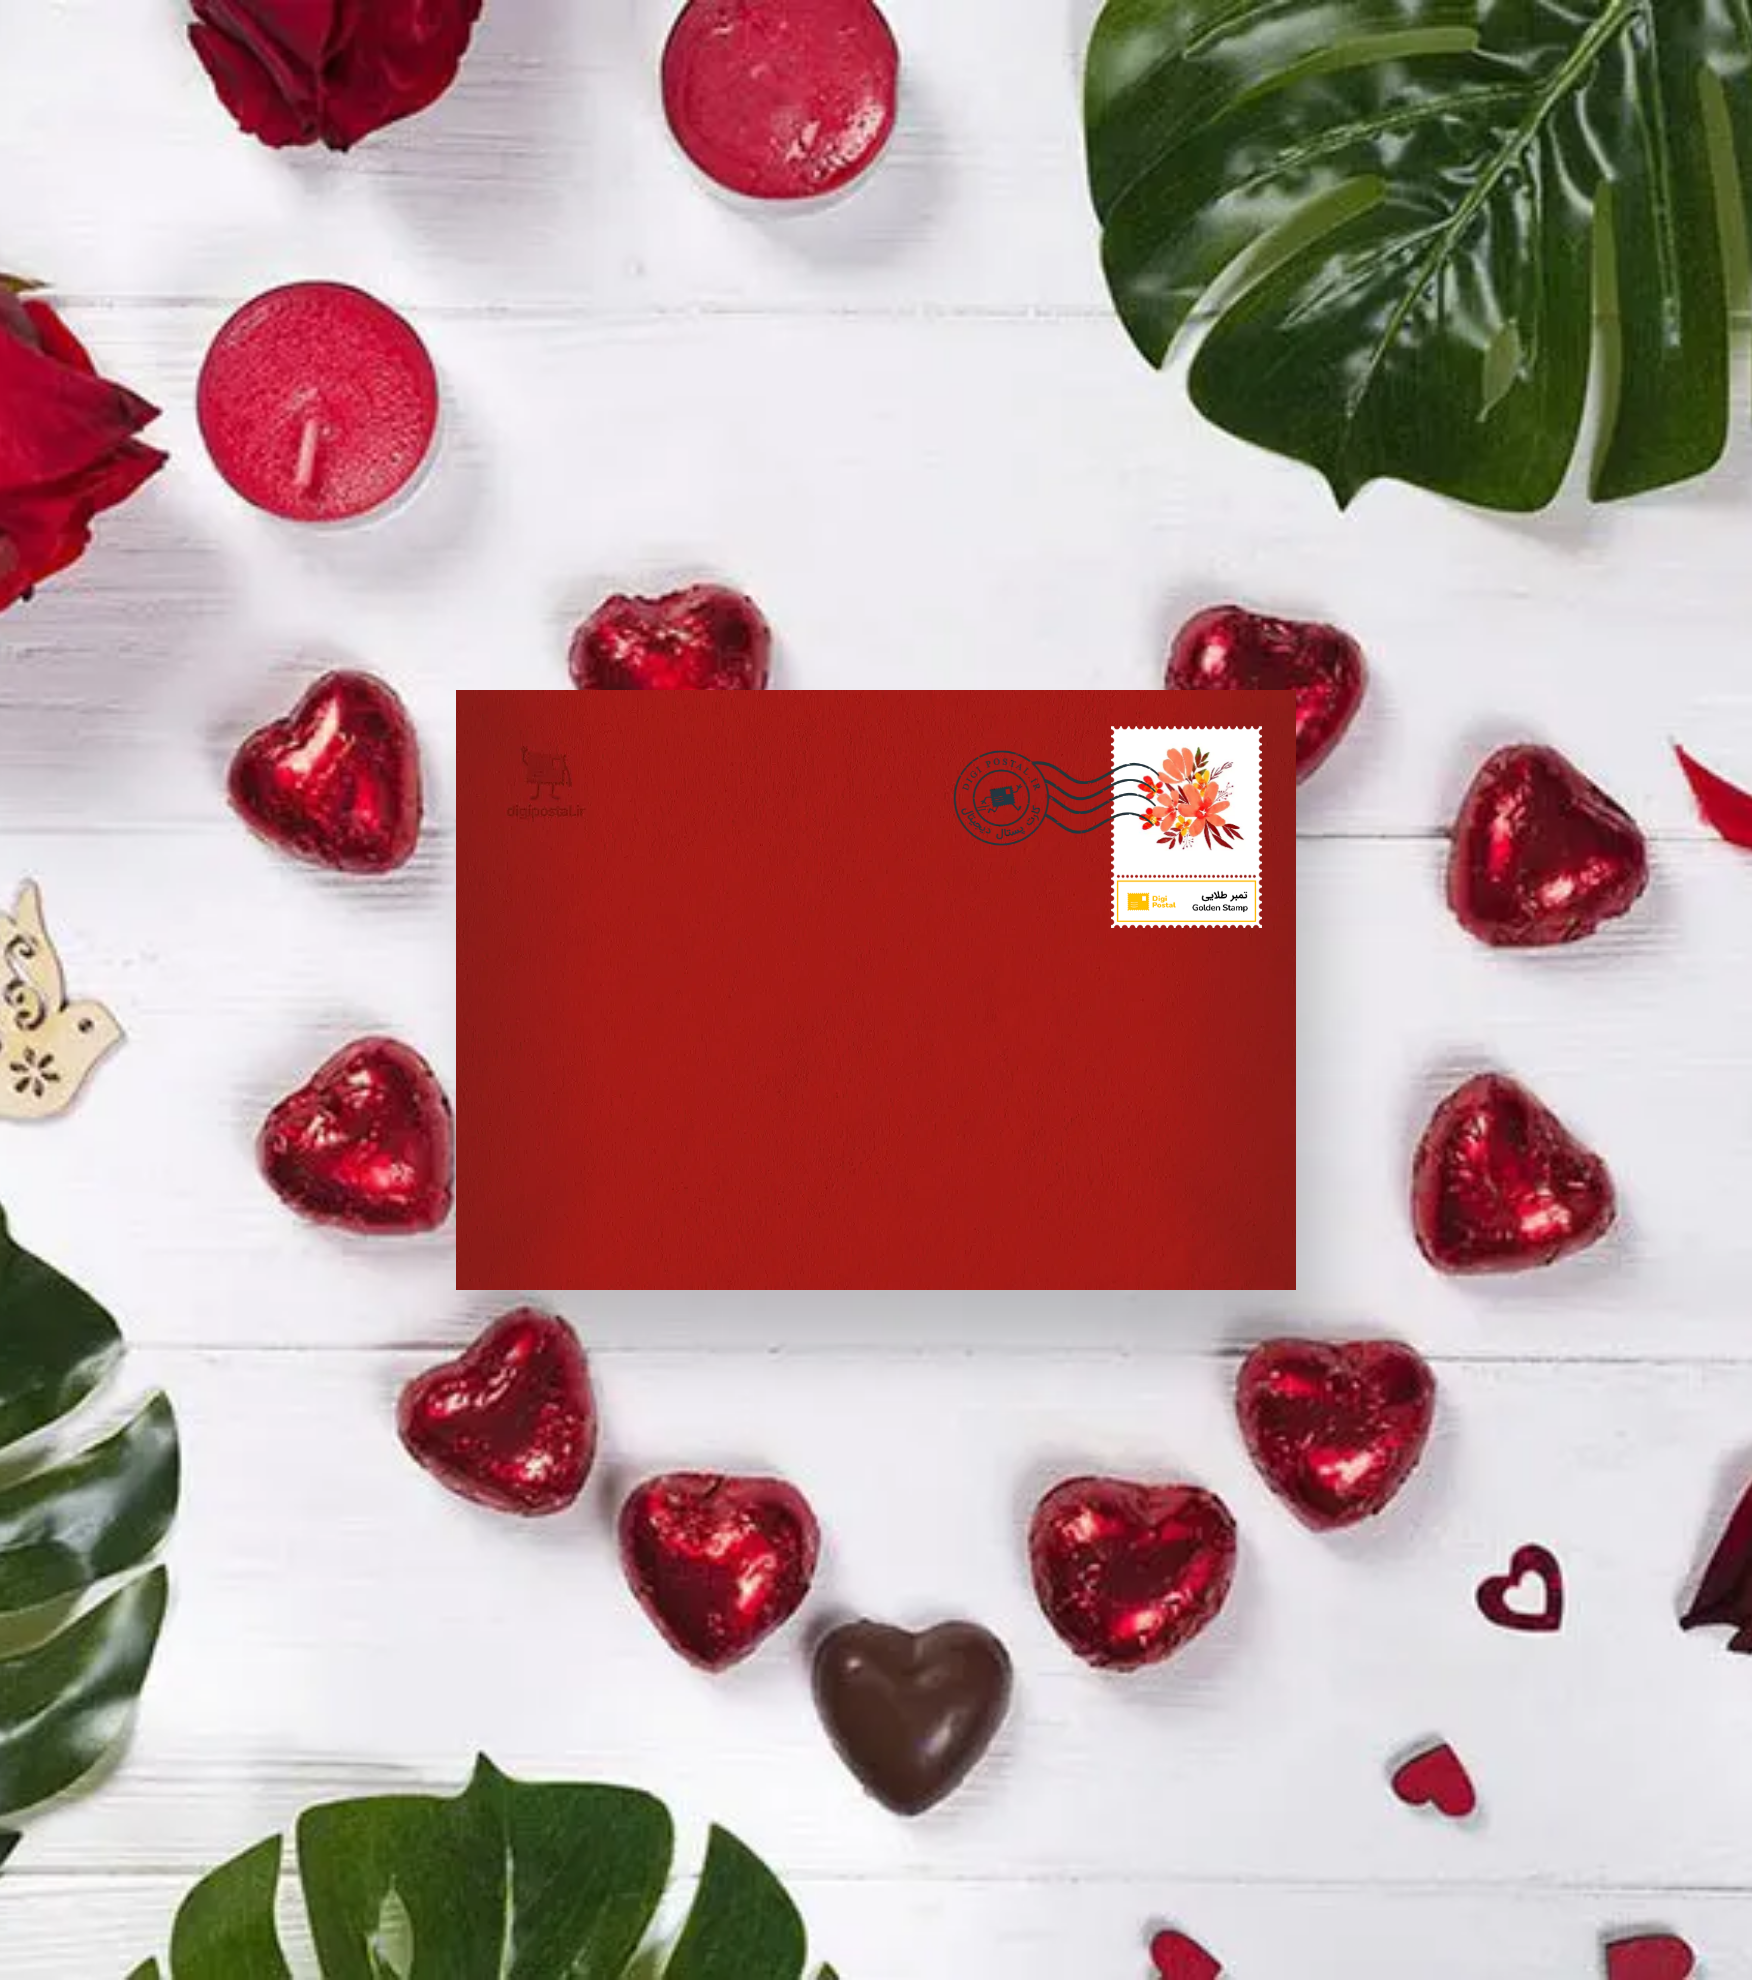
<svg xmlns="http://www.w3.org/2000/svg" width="1752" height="1980">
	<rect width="100%" height="100%" fill="#FFFFFF" />
	<image x="0" y="0" width="1752" height="1980" href="assets/img1.png" />
	<rect x="476" y="750" width="840" height="600" fill="#000000" fill-opacity="0.2" filter="blur(30px)" />
	<image x="456" y="690" width="840" height="600" href="assets/img2.png" />
	<image x="1111" y="726" width="151" height="202" href="assets/img4.png" />
	<image x="1133" y="743" width="113" height="108" href="assets/img5.png" />
	<image x="953" y="750" width="207" height="96" href="assets/img3.png" />
</svg>
